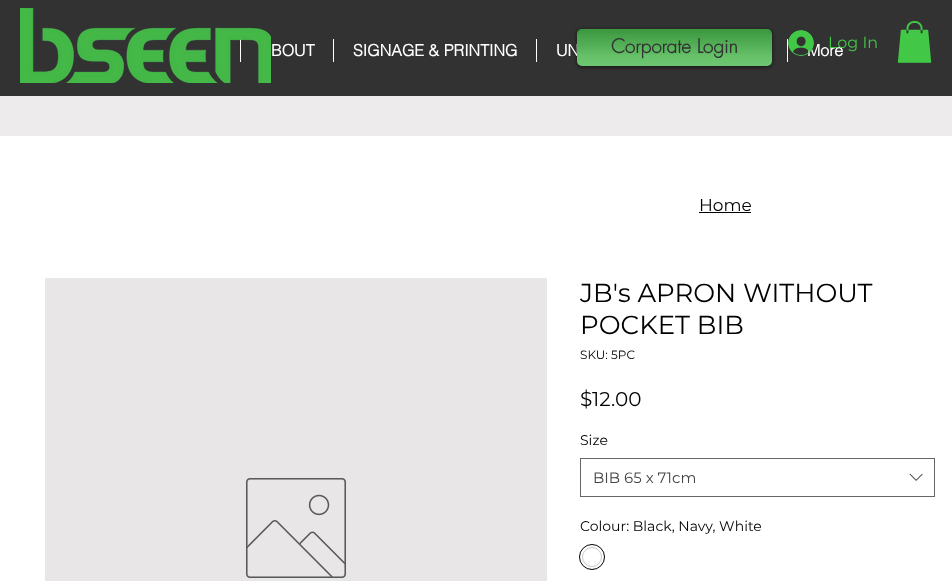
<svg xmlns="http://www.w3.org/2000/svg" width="952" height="581">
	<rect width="100%" height="100%" fill="#FFFFFF" />
	<rect x="0" y="0" width="952" height="96" fill="#323233" />
	<rect x="240" y="39" width="1" height="23" fill="#FFFFFF" />
	<image x="20" y="8" width="251" height="75" href="assets/img1.png" />
	<rect x="577" y="30" width="195" height="37" rx="5" fill="#000000" fill-opacity="0.6" filter="blur(2px)" />
	<text x="556" y="56" font-family="helvetica" font-size="16" font-weight="700" fill="#FFFFFF">UN</text>
	<rect x="577" y="29" width="195" height="37" rx="5" fill="#4AB74E" />
	<image x="577" y="29" width="195" height="26" href="assets/img2.png" />
	<image x="577" y="33" width="195" height="33" href="assets/img3.png" />
	<text x="611" y="53" font-family="futura" font-size="19" font-weight="700" fill="#323233">Corporate Login</text>
	<text x="807" y="56" font-family="helvetica" font-size="16" font-weight="700" fill="#FFFFFF">More</text>
	<image x="788" y="30" width="26" height="26" href="assets/img4.png" />
	<text x="828" y="48" font-family="Montserrat" font-size="16" fill="#42C746">Log In</text>
	<image x="897" y="21" width="35" height="42" href="assets/img5.png" />
	<text x="271" y="56" font-family="helvetica" font-size="16" font-weight="700" fill="#FFFFFF">BOUT</text>
	<rect x="333" y="39" width="1" height="23" fill="#FFFFFF" />
	<text x="353" y="56" font-family="helvetica" font-size="16" font-weight="700" fill="#FFFFFF">SIGNAGE &amp; PRINTING</text>
	<rect x="536" y="39" width="1" height="23" fill="#FFFFFF" />
	<rect x="787" y="39" width="1" height="23" fill="#FFFFFF" />
	<rect x="0" y="96" width="952" height="40" fill="#EDEBEB" />
	<text x="699" y="211" font-family="Montserrat" font-size="17" fill="#000000">Home</text>
	<rect x="699" y="212" width="52" height="1" fill="#000000" />
	<rect x="45.5" y="278.5" width="501" height="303" fill="none" stroke="#E8E6E6" />
	<rect x="46" y="279" width="500" height="302" fill="#E8E6E6" />
	<image x="246" y="478" width="100" height="100" href="assets/img6.png" />
	<g font-family="Montserrat" font-size="26" fill="#000000">
		<text x="580" y="302">JB's APRON WITHOUT</text>
		<text x="580" y="334">POCKET BIB</text>
	</g>
	<text x="580" y="359" font-family="Montserrat" font-size="12" fill="#000000">SKU: 5PC</text>
	<text x="580" y="406" font-family="Montserrat" font-size="20" fill="#000000">$12.00</text>
	<text x="580" y="445" font-family="Montserrat" font-size="14" fill="#000000">Size</text>
	<rect x="580.5" y="458.5" width="354" height="38" fill="none" stroke="#666666" />
	<text x="593" y="483" font-family="Montserrat" font-size="15" fill="#444444">BIB 65 x 71cm</text>
	<image x="909" y="473" width="14" height="8" href="assets/img7.png" />
	<text x="580" y="531" font-family="Montserrat" font-size="14" fill="#000000">Colour: Black, Navy, White</text>
	<circle cx="592" cy="557" r="12.5" fill="none" stroke="#000000" />
	<circle cx="592" cy="557" r="9.5" fill="none" stroke="#C9C9C9" />
</svg>
